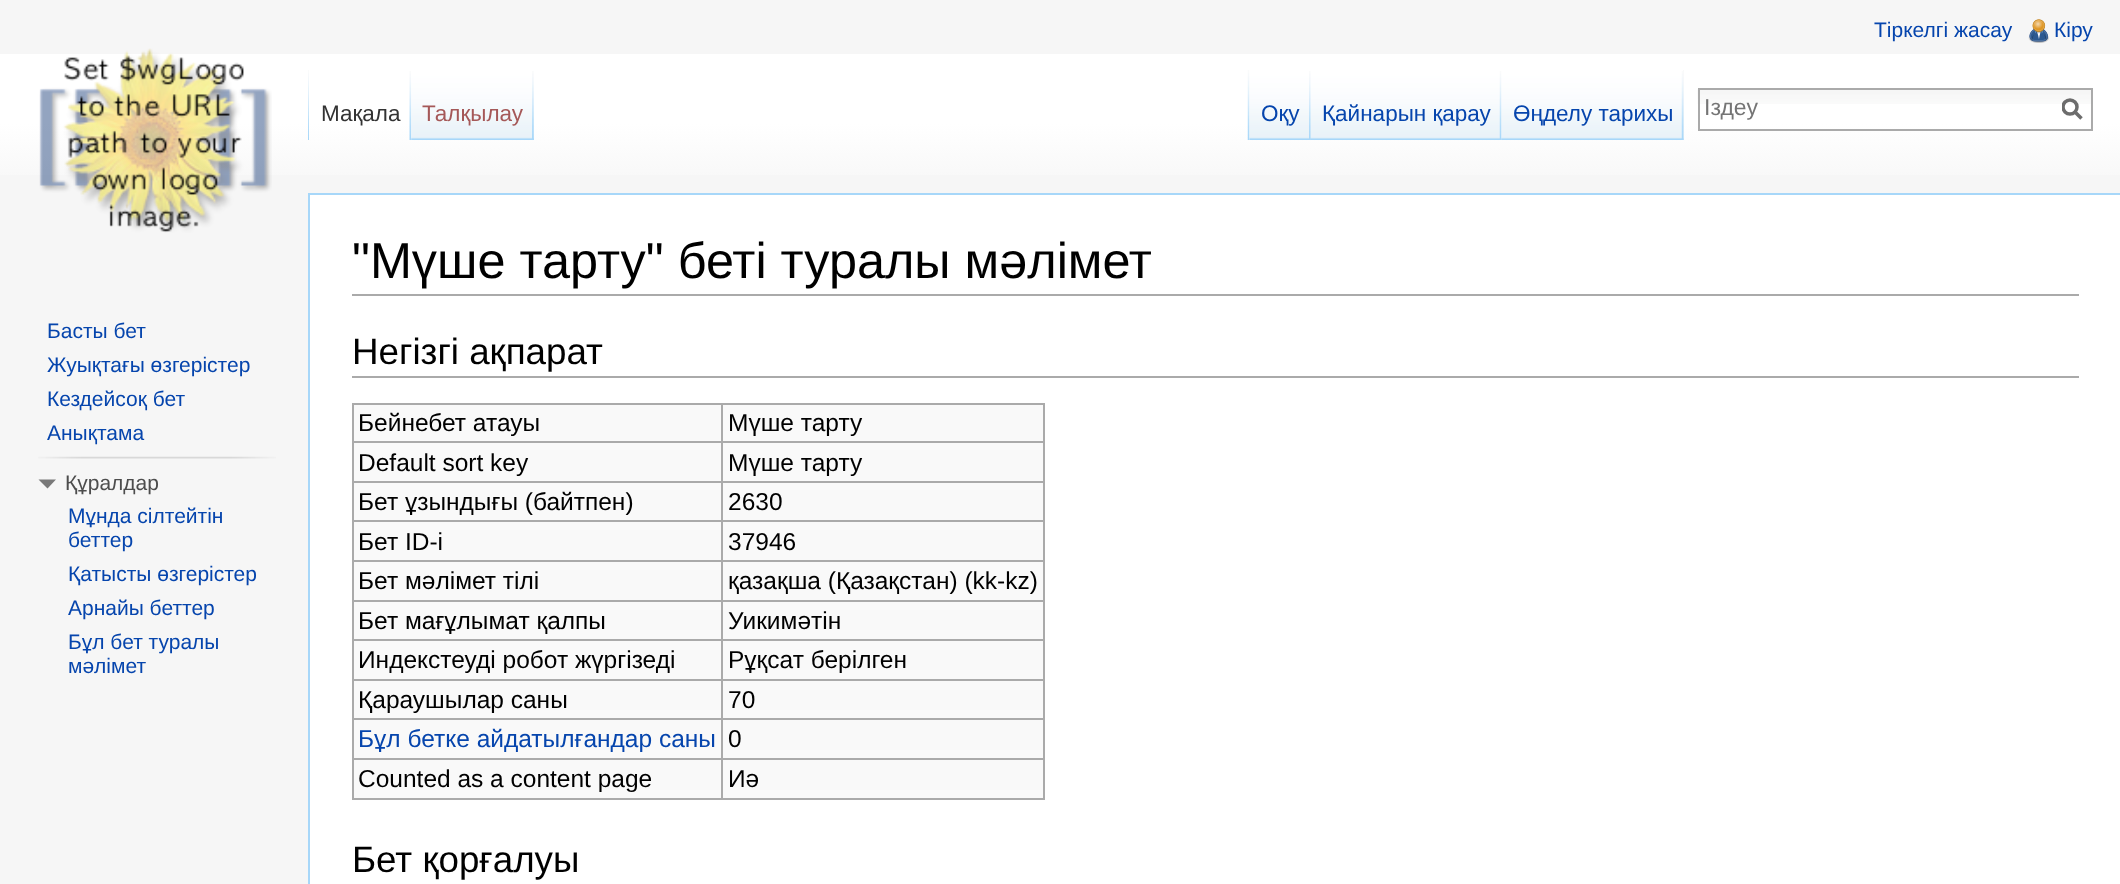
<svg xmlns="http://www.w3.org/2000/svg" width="2120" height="884">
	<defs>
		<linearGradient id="g1" gradientUnits="userSpaceOnUse" x1="1061" y1="54" x2="1061" y2="194"><stop offset="0.5" stop-color="#FFFFFF" /><stop offset="1" stop-color="#F6F6F6" /></linearGradient>
		<clipPath id="clip1"><rect x="2062" y="98" width="21" height="23" /></clipPath>
	</defs>
	<rect width="100%" height="100%" fill="#F6F6F6" />
	<text x="1874" y="37" font-family="Liberation Sans" font-size="21" fill="#0645AD">Тіркелгі жасау</text>
	<image x="2028" y="19" width="21" height="24" href="assets/img1.png" />
	<text x="2054" y="37" font-family="Liberation Sans" font-size="21" fill="#0645AD">Кіру</text>
	<rect x="0" y="54" width="2120" height="121" fill="url(#g1)" />
	<image x="308" y="70" width="1" height="70" href="assets/img2.png" />
	<image x="533" y="70" width="1" height="70" href="assets/img3.png" />
	<image x="409" y="71" width="3" height="69" href="assets/img4.png" />
	<text x="321" y="121" font-family="Liberation Sans" font-size="22.5" fill="#333333">Мақала</text>
	<image x="411" y="70" width="123" height="70" href="assets/img5.png" />
	<image x="532" y="71" width="2" height="69" href="assets/img6.png" />
	<text x="422" y="121" font-family="Liberation Sans" font-size="22.5" fill="#A55858">Талқылау</text>
	<image x="1247" y="70" width="3" height="70" href="assets/img7.png" />
	<image x="1249" y="70" width="62" height="70" href="assets/img8.png" />
	<image x="1309" y="71" width="2" height="69" href="assets/img6.png" />
	<text x="1261" y="121" font-family="Liberation Sans" font-size="22.5" fill="#0645AD">Оқу</text>
	<image x="1310" y="70" width="192" height="70" href="assets/img9.png" />
	<image x="1499" y="71" width="3" height="69" href="assets/img10.png" />
	<text x="1322" y="121" font-family="Liberation Sans" font-size="22.5" fill="#0645AD">Қайнарын қарау</text>
	<rect x="1683" y="70" width="1" height="70" fill="#F3F3F3" />
	<image x="1501" y="70" width="183" height="70" href="assets/img11.png" />
	<image x="1681" y="71" width="3" height="69" href="assets/img10.png" />
	<text x="1513" y="121" font-family="Liberation Sans" font-size="22.5" fill="#0645AD">Өңделу тарихы</text>
	<image x="1697" y="89" width="394" height="15" href="assets/img12.png" />
	<rect x="1699" y="89" width="393" height="41" fill="none" stroke="#AAAAAA" stroke-width="2" />
	<text x="1704" y="115" font-family="Liberation Sans" font-size="23" fill="#757575">Іздеу</text>
	<path d="M2081.5 118.5L2074.5 111.5" fill="none" stroke="#6C6C6C" stroke-width="3.5" />
	<g clip-path="url(#clip1)">
		<circle cx="2070" cy="107" r="7" fill="none" stroke="#6C6C6C" stroke-width="3.5" />
	</g>
	<image x="39" y="48" width="233" height="185" href="assets/img13.png" />
	<g font-family="Liberation Sans" font-size="21" fill="#0645AD">
		<text x="47" y="338">Басты бет</text>
		<text x="47" y="372">Жуықтағы өзгерістер</text>
		<text x="47" y="406">Кездейсоқ бет</text>
		<text x="47" y="440">Анықтама</text>
	</g>
	<image x="38" y="456" width="238" height="3" href="assets/img14.png" />
	<path d="M56 479.5L47.5 488.5L38.5 479.5Z" fill="#797979" />
	<text x="65" y="490" font-family="Liberation Sans" font-size="21" fill="#4D4D4D">Құралдар</text>
	<g font-family="Liberation Sans" font-size="21" fill="#0645AD">
		<text x="68" y="523">Мұнда сілтейтін</text>
		<text x="68" y="547">беттер</text>
		<text x="68" y="581">Қатысты өзгерістер</text>
		<text x="68" y="615">Арнайы беттер</text>
		<text x="68" y="649">Бұл бет туралы</text>
		<text x="68" y="673">мәлімет</text>
	</g>
	<rect x="310" y="195" width="1810" height="689" fill="#FFFFFF" />
	<rect x="308" y="193" width="1812" height="2" fill="#A7D7F9" />
	<rect x="308" y="193" width="2" height="691" fill="#A7D7F9" />
	<rect x="352" y="294" width="1727" height="2" fill="#AAAAAA" />
	<text x="352" y="278" font-family="Liberation Sans" font-size="50.4" fill="#000000">"Мүше тарту" беті туралы мәлімет</text>
	<rect x="352" y="376" width="1727" height="2" fill="#AAAAAA" />
	<text x="352" y="364" font-family="Liberation Sans" font-size="36.75" fill="#000000">Негізгі ақпарат</text>
	<rect x="354" y="405" width="689" height="393" fill="#F9F9F9" />
	<rect x="352" y="403" width="693" height="2" fill="#AAAAAA" />
	<rect x="1043" y="403" width="2" height="397" fill="#AAAAAA" />
	<rect x="352" y="798" width="693" height="2" fill="#AAAAAA" />
	<rect x="352" y="403" width="2" height="397" fill="#AAAAAA" />
	<text x="358" y="431" font-family="Liberation Sans" font-size="24.5" fill="#000000">Бейнебет атауы</text>
	<rect x="721" y="441" width="324" height="2" fill="#AAAAAA" />
	<rect x="721" y="481" width="324" height="2" fill="#AAAAAA" />
	<rect x="721" y="520" width="324" height="2" fill="#AAAAAA" />
	<rect x="721" y="560" width="324" height="2" fill="#AAAAAA" />
	<rect x="721" y="600" width="324" height="2" fill="#AAAAAA" />
	<rect x="721" y="639" width="324" height="2" fill="#AAAAAA" />
	<rect x="721" y="679" width="324" height="2" fill="#AAAAAA" />
	<rect x="721" y="718" width="324" height="2" fill="#AAAAAA" />
	<rect x="721" y="758" width="324" height="2" fill="#AAAAAA" />
	<rect x="721" y="758" width="2" height="42" fill="#AAAAAA" />
	<rect x="352" y="758" width="371" height="2" fill="#AAAAAA" />
	<rect x="721" y="718" width="2" height="42" fill="#AAAAAA" />
	<rect x="352" y="718" width="371" height="2" fill="#AAAAAA" />
	<rect x="721" y="679" width="2" height="40" fill="#AAAAAA" />
	<rect x="352" y="679" width="371" height="2" fill="#AAAAAA" />
	<rect x="721" y="639" width="2" height="42" fill="#AAAAAA" />
	<rect x="352" y="639" width="371" height="2" fill="#AAAAAA" />
	<rect x="721" y="600" width="2" height="41" fill="#AAAAAA" />
	<rect x="352" y="600" width="371" height="2" fill="#AAAAAA" />
	<rect x="721" y="560" width="2" height="42" fill="#AAAAAA" />
	<rect x="352" y="560" width="371" height="2" fill="#AAAAAA" />
	<rect x="721" y="520" width="2" height="42" fill="#AAAAAA" />
	<rect x="352" y="520" width="371" height="2" fill="#AAAAAA" />
	<rect x="721" y="481" width="2" height="41" fill="#AAAAAA" />
	<rect x="352" y="481" width="371" height="2" fill="#AAAAAA" />
	<rect x="721" y="441" width="2" height="42" fill="#AAAAAA" />
	<rect x="352" y="441" width="371" height="2" fill="#AAAAAA" />
	<rect x="721" y="403" width="2" height="40" fill="#AAAAAA" />
	<g font-family="Liberation Sans" font-size="24.5" fill="#000000">
		<text x="728" y="431">Мүше тарту</text>
		<text x="358" y="471">Default sort key</text>
		<text x="728" y="471">Мүше тарту</text>
		<text x="358" y="510">Бет ұзындығы (байтпен)</text>
		<text x="728" y="510">2630</text>
		<text x="358" y="550">Бет ID-і</text>
		<text x="728" y="550">37946</text>
		<text x="358" y="589">Бет мәлімет тілі</text>
		<text x="728" y="589">қазақша (Қазақстан) (kk-kz)</text>
		<text x="358" y="629">Бет мағұлымат қалпы</text>
		<text x="728" y="629">Уикимәтін</text>
		<text x="358" y="668">Индекстеуді робот жүргізеді</text>
		<text x="728" y="668">Рұқсат берілген</text>
		<text x="358" y="708">Қараушылар саны</text>
		<text x="728" y="708">70</text>
	</g>
	<text x="358" y="747" font-family="Liberation Sans" font-size="24.5" fill="#0645AD">Бұл бетке айдатылғандар саны</text>
	<g font-family="Liberation Sans" font-size="24.5" fill="#000000">
		<text x="728" y="747">0</text>
		<text x="358" y="787">Counted as a content page</text>
		<text x="728" y="787">Иә</text>
	</g>
	<text x="352" y="872" font-family="Liberation Sans" font-size="36.75" fill="#000000">Бет қорғалуы</text>
</svg>
